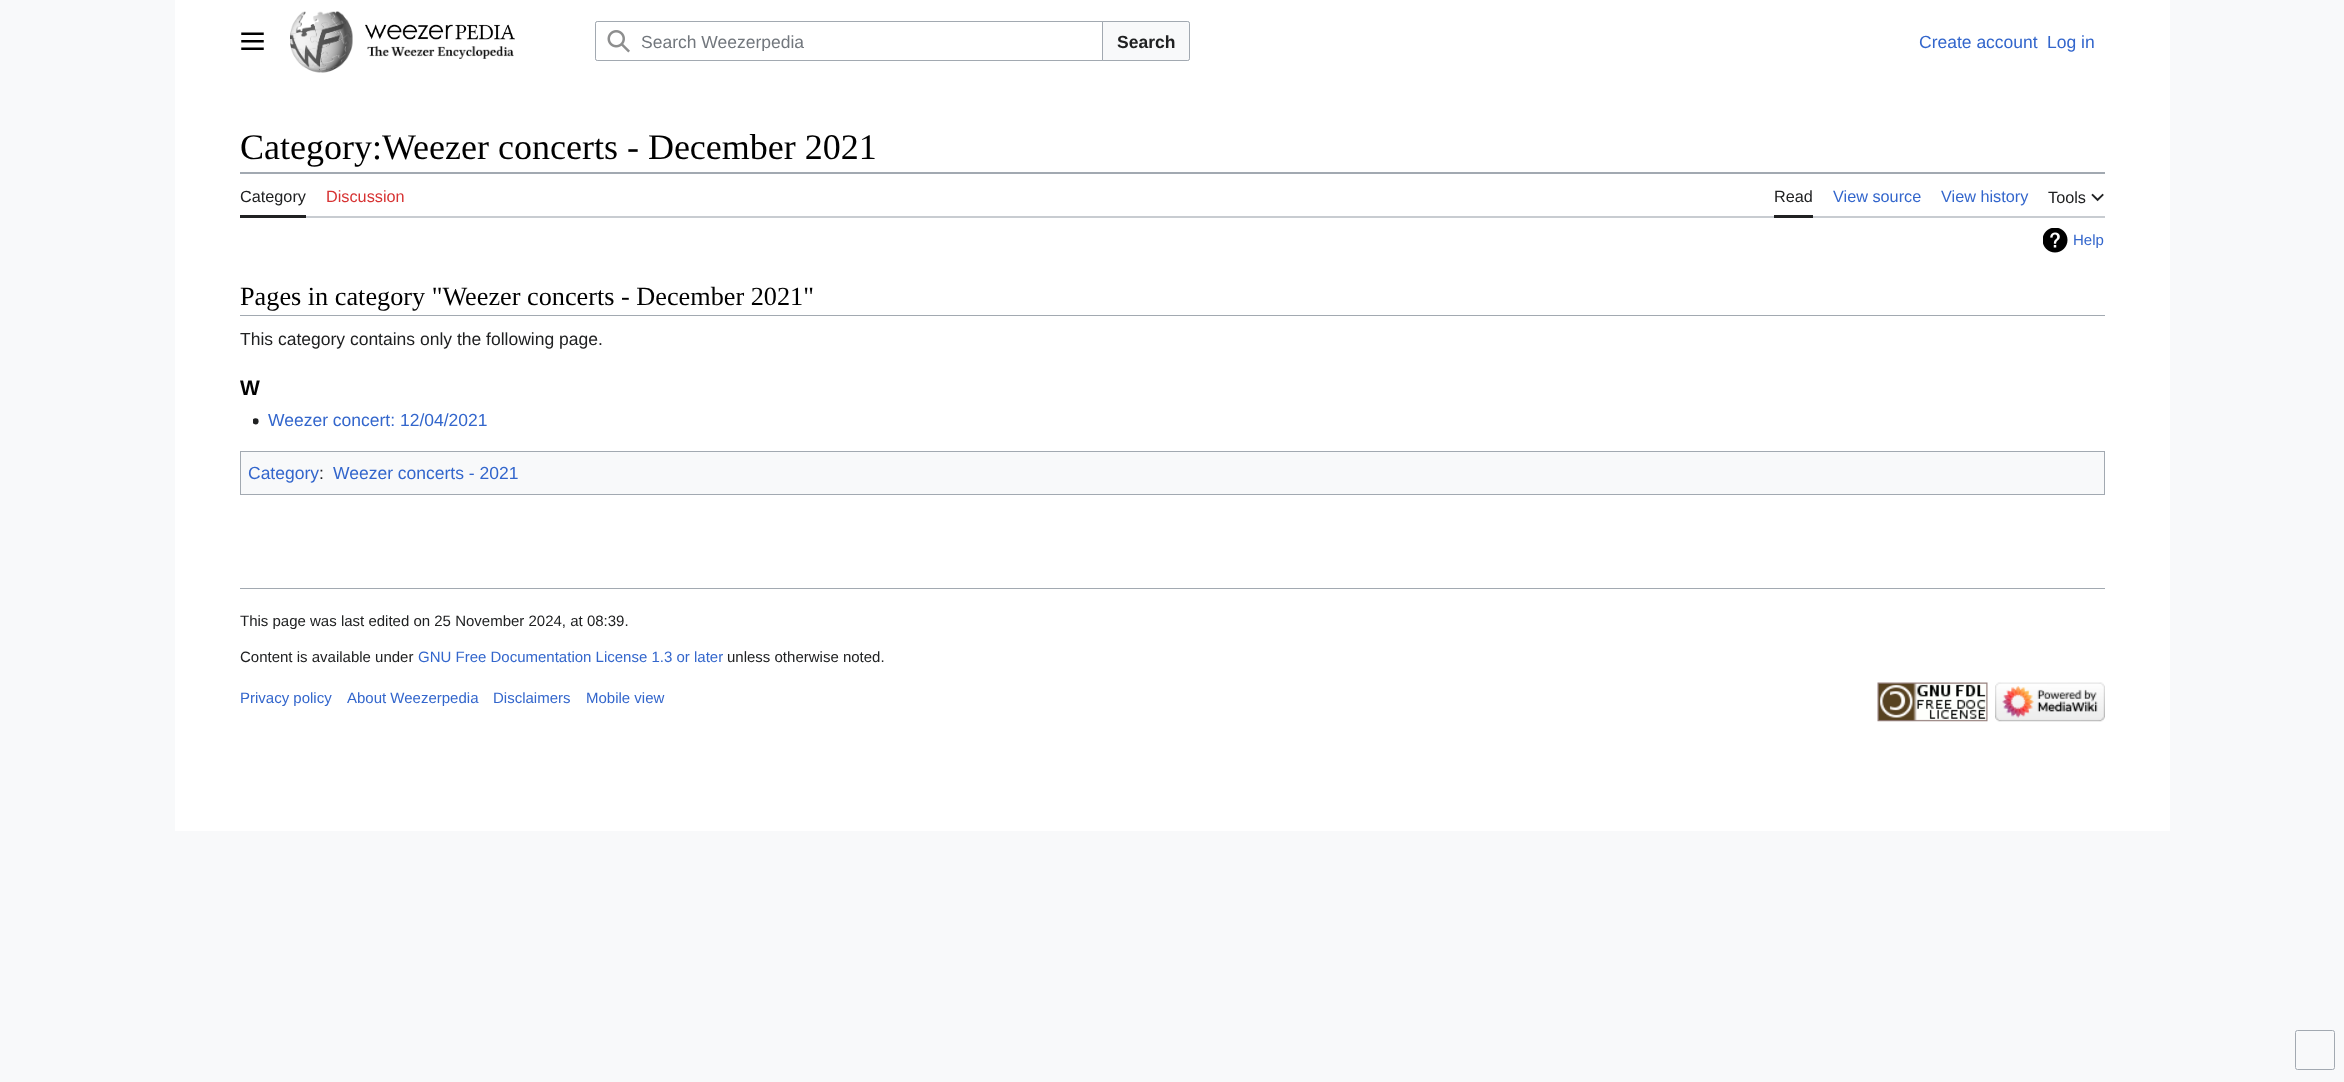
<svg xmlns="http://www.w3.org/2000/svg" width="2344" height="1082">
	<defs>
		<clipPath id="clip1"><rect x="641" y="31" width="450" height="20" /></clipPath>
	</defs>
	<rect width="100%" height="100%" fill="#F8F9FA" />
	<rect x="175" y="0" width="1995" height="831" fill="#FFFFFF" />
	<image x="241" y="32" width="23" height="18" href="assets/img1.png" />
	<image x="290" y="11" width="63" height="62" href="assets/img2.png" />
	<image x="365" y="24" width="150" height="16" href="assets/img3.png" />
	<image x="367" y="46" width="147" height="13" href="assets/img4.png" />
	<rect x="595.5" y="21.5" width="594" height="39" rx="2" fill="none" stroke="#A2A9B1" />
	<path d="M1101.5 21.5H1187.5C1188.5 21.5 1189.5 22.5 1189.5 23.5V58.5C1189.5 59.5 1188.5 60.5 1187.5 60.5H1101.5Z" fill="#F8F9FA" stroke="#A2A9B1" />
	<path d="M597.5 21.5H1102.5V60.5H597.5C596.5 60.5 595.5 59.5 595.5 58.5V23.5C595.5 22.5 596.5 21.5 597.5 21.5Z" fill="#FFFFFF" stroke="#A2A9B1" />
	<image x="607" y="30" width="23" height="23" href="assets/img5.png" />
	<g clip-path="url(#clip1)">
		<text x="641" y="48" font-family="Liberation Sans" font-size="17.5" fill="#72777D">Search Weezerpedia</text>
	</g>
	<text x="1117" y="48" font-family="Liberation Sans" font-size="17.5" font-weight="700" fill="#202122">Search</text>
	<g font-family="Liberation Sans" font-size="17.5" fill="#3366CC">
		<text x="1919" y="48">Create account</text>
		<text x="2047" y="48">Log in</text>
	</g>
	<rect x="240" y="172" width="1865" height="2" fill="#A2A9B1" />
	<text x="240" y="159" font-family="Liberation Serif" font-size="36" fill="#000000">Category:Weezer concerts - December 2021</text>
	<rect x="306" y="216" width="1799" height="2" fill="#C8CCD1" />
	<rect x="240" y="215" width="66" height="3" fill="#202122" />
	<text x="240" y="202" font-family="Liberation Sans" font-size="16.25" fill="#202122">Category</text>
	<text x="326" y="202" font-family="Liberation Sans" font-size="16.25" fill="#D73333">Discussion</text>
	<rect x="1774" y="215" width="39" height="3" fill="#202122" />
	<text x="1774" y="202" font-family="Liberation Sans" font-size="16.25" fill="#202122">Read</text>
	<g font-family="Liberation Sans" font-size="16.25" fill="#3366CC">
		<text x="1833" y="202">View source</text>
		<text x="1941" y="202">View history</text>
	</g>
	<text x="2048" y="203" font-family="Liberation Sans" font-size="16.25" fill="#202122">Tools</text>
	<image x="2091" y="193" width="13" height="9" href="assets/img6.png" />
	<image x="2043" y="228" width="25" height="25" href="assets/img7.png" />
	<text x="2073" y="245" font-family="Liberation Sans" font-size="15" fill="#3366CC">Help</text>
	<rect x="240" y="315" width="1865" height="1" fill="#A2A9B1" />
	<text x="240" y="305" font-family="Liberation Serif" font-size="26.25" fill="#000000">Pages in category "Weezer concerts - December 2021"</text>
	<text x="240" y="345" font-family="Liberation Sans" font-size="17.5" fill="#202122">This category contains only the following page.</text>
	<text x="240" y="395" font-family="Liberation Sans" font-size="21" font-weight="700" fill="#000000">W</text>
	<image x="253" y="418" width="6" height="7" href="assets/img8.png" />
	<text x="268" y="426" font-family="Liberation Sans" font-size="17.5" fill="#3366CC">Weezer concert: 12/04/2021</text>
	<rect x="240.5" y="451.5" width="1864" height="43" fill="#F8F9FA" stroke="#A2A9B1" />
	<text x="248" y="479" font-family="Liberation Sans" font-size="17.5" fill="#3366CC">Category</text>
	<text x="319" y="479" font-family="Liberation Sans" font-size="17.5" fill="#202122">:</text>
	<text x="333" y="479" font-family="Liberation Sans" font-size="17.5" fill="#3366CC">Weezer concerts - 2021</text>
	<rect x="240" y="588" width="1865" height="1" fill="#A2A9B1" />
	<g font-family="Liberation Sans" font-size="15" fill="#202122">
		<text x="240" y="626">This page was last edited on 25 November 2024, at 08:39.</text>
		<text x="240" y="662">Content is available under</text>
	</g>
	<text x="418" y="662" font-family="Liberation Sans" font-size="15" fill="#3366CC">GNU Free Documentation License 1.3 or later</text>
	<text x="727" y="662" font-family="Liberation Sans" font-size="15" fill="#202122">unless otherwise noted.</text>
	<g font-family="Liberation Sans" font-size="15" fill="#3366CC">
		<text x="240" y="703">Privacy policy</text>
		<text x="347" y="703">About Weezerpedia</text>
		<text x="493" y="703">Disclaimers</text>
		<text x="586" y="703">Mobile view</text>
	</g>
	<image x="1877" y="682" width="111" height="40" href="assets/img9.png" />
	<image x="1995" y="682" width="110" height="40" href="assets/img10.png" />
	<rect x="2295.5" y="1030.5" width="39" height="39" rx="2" fill="none" stroke="#A2A9B1" />
</svg>
